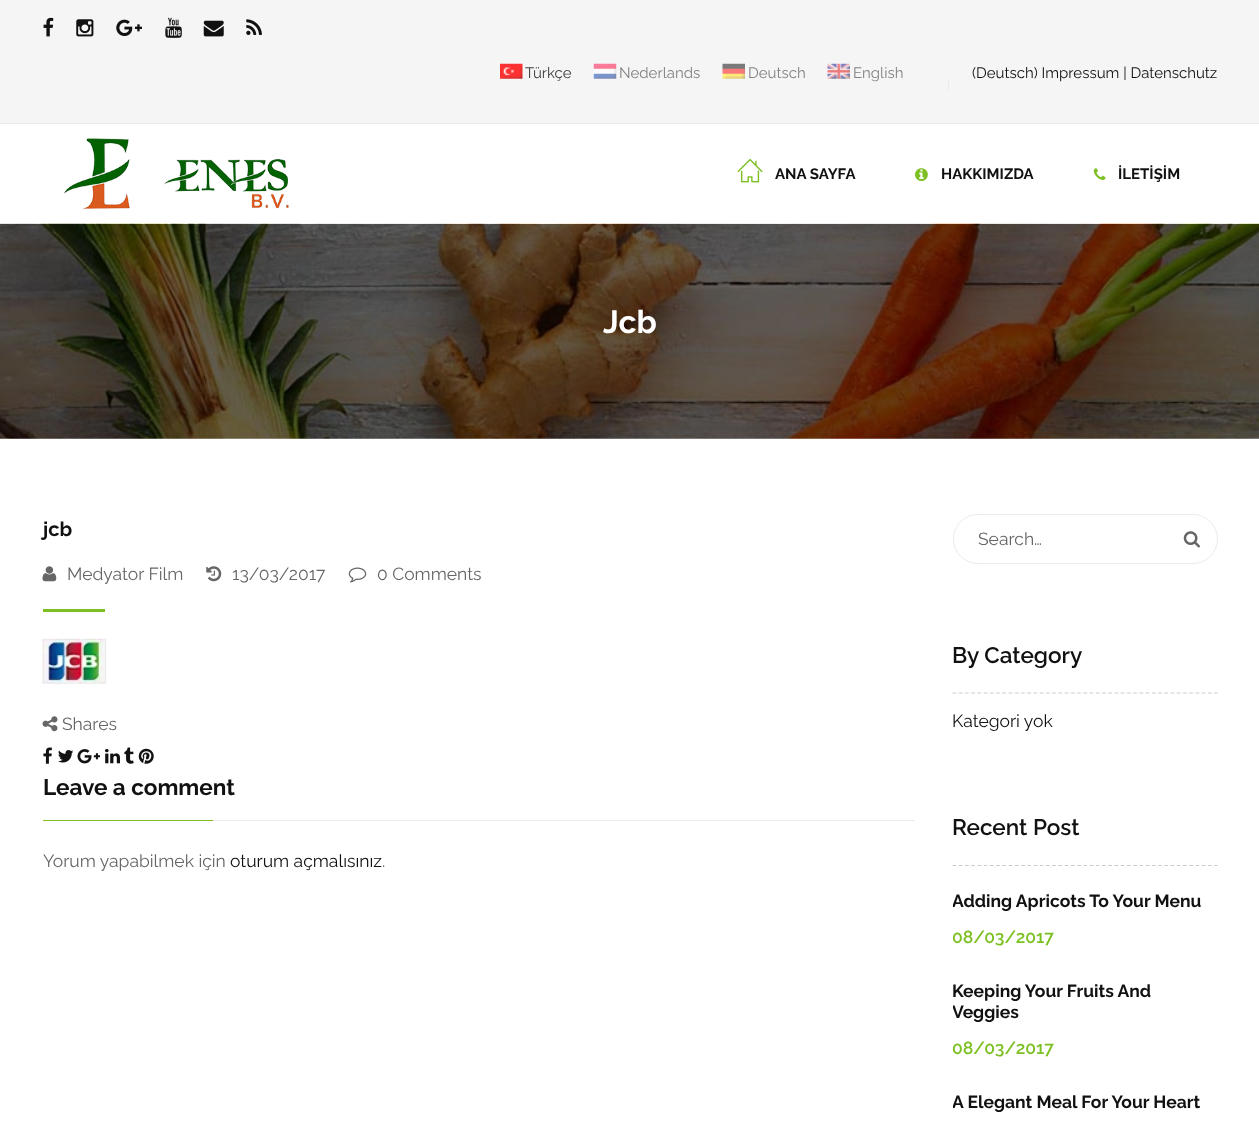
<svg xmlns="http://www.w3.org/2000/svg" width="1259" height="1129">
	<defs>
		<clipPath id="clip1"><rect x="953" y="891" width="265" height="22" /></clipPath>
		<clipPath id="clip2"><rect x="953" y="981" width="265" height="42" /></clipPath>
		<clipPath id="clip3"><rect x="953" y="1091" width="265" height="22" /></clipPath>
	</defs>
	<rect width="100%" height="100%" fill="#FFFFFF" />
	<rect x="0" y="0" width="1259" height="123" fill="#F5F5F5" />
	<image x="43" y="17" width="11" height="20" href="assets/img1.png" />
	<image x="76" y="19" width="18" height="18" href="assets/img2.png" />
	<image x="116" y="19" width="26" height="17" href="assets/img3.png" />
	<image x="165" y="17" width="17" height="21" href="assets/img4.png" />
	<image x="203" y="20" width="21" height="17" href="assets/img5.png" />
	<image x="246" y="19" width="16" height="16" href="assets/img6.png" />
	<rect x="0" y="123" width="1259" height="1" fill="#EBEBEB" />
	<image x="500" y="63" width="23" height="16" href="assets/img7.png" />
	<text x="525" y="78" font-family="Raleway" font-size="15" fill="#3F3F3F">Türkçe</text>
	<image x="593" y="63" width="24" height="16" href="assets/img8.png" />
	<text x="619" y="78" font-family="Raleway" font-size="15" fill="#838383">Nederlands</text>
	<image x="722" y="63" width="23" height="16" href="assets/img9.png" />
	<text x="748" y="78" font-family="Raleway" font-size="15" fill="#838383">Deutsch</text>
	<image x="827" y="63" width="23" height="16" href="assets/img10.png" />
	<text x="853" y="78" font-family="Raleway" font-size="15" fill="#838383">English</text>
	<text x="972" y="78" font-family="Raleway" font-size="15" fill="#111111">(Deutsch) Impressum | Datenschutz</text>
	<rect x="948" y="79" width="1" height="12" fill="#EBEBEB" />
	<image x="64" y="138" width="226" height="72" href="assets/img11.png" />
	<image x="737" y="158" width="26" height="25" href="assets/img12.png" />
	<text x="775" y="179" font-family="Raleway" font-size="15" font-weight="700" fill="#111111">ANA SAYFA</text>
	<image x="915" y="168" width="13" height="14" href="assets/img13.png" />
	<text x="941" y="179" font-family="Raleway" font-size="15" font-weight="700" fill="#111111">HAKKIMIZDA</text>
	<image x="1093" y="168" width="13" height="12" href="assets/img14.png" />
	<text x="1118" y="179" font-family="Raleway" font-size="15" font-weight="700" fill="#111111">İLETİŞİM</text>
	<image x="0" y="223" width="1259" height="216" href="assets/img15.png" />
	<text x="603" y="333" font-family="Raleway" font-size="32" font-weight="700" fill="#FFFFFF">Jcb</text>
	<text x="43" y="536" font-family="Raleway" font-size="20" font-weight="700" fill="#111111">jcb</text>
	<image x="42" y="566" width="15" height="16" href="assets/img16.png" />
	<text x="67" y="580" font-family="Raleway" font-size="17.5" fill="#666666">Medyator Film</text>
	<image x="206" y="566" width="16" height="16" href="assets/img17.png" />
	<text x="232" y="580" font-family="Raleway" font-size="17.5" fill="#666666">13/03/2017</text>
	<image x="348" y="567" width="19" height="16" href="assets/img18.png" />
	<text x="377" y="580" font-family="Raleway" font-size="17.5" fill="#666666">0 Comments</text>
	<rect x="43" y="609" width="62" height="3" fill="#7DC023" />
	<image x="42" y="638" width="65" height="46" href="assets/img19.png" />
	<image x="42" y="716" width="16" height="16" href="assets/img20.png" />
	<text x="62" y="730" font-family="Raleway" font-size="17.5" fill="#666666">Shares</text>
	<image x="43" y="747" width="9" height="17" href="assets/img21.png" />
	<image x="58" y="750" width="16" height="13" href="assets/img22.png" />
	<image x="77" y="749" width="23" height="15" href="assets/img23.png" />
	<image x="105" y="749" width="15" height="15" href="assets/img24.png" />
	<image x="124" y="747" width="10" height="17" href="assets/img25.png" />
	<image x="138" y="748" width="16" height="16" href="assets/img26.png" />
	<rect x="213" y="820" width="702" height="1" fill="#EBEBEB" />
	<text x="43" y="795" font-family="Raleway" font-size="22.5" font-weight="700" fill="#111111">Leave a comment</text>
	<rect x="43" y="820" width="170" height="1" fill="#7DC023" />
	<text x="43" y="867" font-family="Raleway" font-size="17.5" fill="#666666">Yorum yapabilmek için</text>
	<text x="230" y="867" font-family="Raleway" font-size="17.5" fill="#111111">oturum açmalısınız</text>
	<text x="382" y="867" font-family="Raleway" font-size="17.5" fill="#666666">.</text>
	<rect x="953.5" y="514.5" width="264" height="49" rx="24.5" fill="none" stroke="#EBEBEB" />
	<text x="978" y="545" font-family="Raleway" font-size="17.5" fill="#666666">Search…</text>
	<image x="1183" y="531" width="17" height="17" href="assets/img27.png" />
	<path d="M952.5 693H1217.5" fill="none" stroke="#CCCCCC" stroke-width="1.2" stroke-dasharray="3.75 2.48" />
	<text x="952" y="663" font-family="Raleway" font-size="22.5" font-weight="600" fill="#111111">By Category</text>
	<text x="952" y="727" font-family="Raleway" font-size="17.5" fill="#111111">Kategori yok</text>
	<path d="M952.5 865.5H1217.5" fill="none" stroke="#CCCCCC" stroke-width="1.2" stroke-dasharray="3.75 2.48" />
	<text x="952" y="835" font-family="Raleway" font-size="22.5" font-weight="600" fill="#111111">Recent Post</text>
	<g clip-path="url(#clip1)">
		<text x="952" y="907" font-family="Raleway" font-size="17.5" font-weight="700" fill="#111111">Adding Apricots To Your Menu</text>
	</g>
	<text x="952" y="943" font-family="Raleway" font-size="17.5" font-weight="600" fill="#7DC023">08/03/2017</text>
	<text x="952" y="997" font-family="Raleway" font-size="17.5" font-weight="700" fill="#111111">Keeping Your Fruits And</text>
	<g clip-path="url(#clip2)">
		<text x="952" y="1018" font-family="Raleway" font-size="17.5" font-weight="700" fill="#111111">Veggies</text>
	</g>
	<text x="952" y="1054" font-family="Raleway" font-size="17.5" font-weight="600" fill="#7DC023">08/03/2017</text>
	<g clip-path="url(#clip3)">
		<text x="952" y="1108" font-family="Raleway" font-size="17.5" font-weight="700" fill="#111111">A Elegant Meal For Your Heart</text>
	</g>
</svg>
